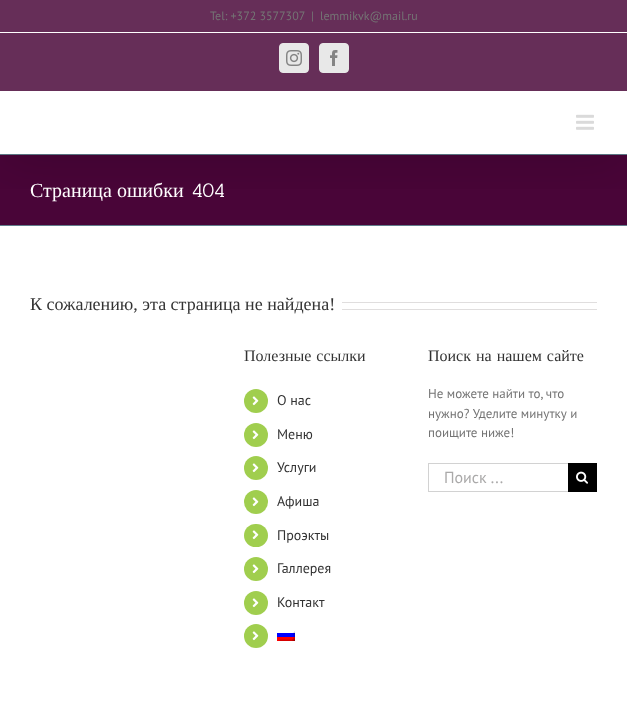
<svg xmlns="http://www.w3.org/2000/svg" width="627" height="721">
	<defs>
		<clipPath id="clip1"><rect x="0" y="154" width="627" height="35" /></clipPath>
	</defs>
	<rect width="100%" height="100%" fill="#FFFFFF" />
	<rect x="0" y="155" width="627" height="70" fill="#490538" />
	<rect x="0" y="154" width="627" height="1" fill="#607D8B" />
	<rect x="0" y="225" width="627" height="1" fill="#607D8B" />
	<g clip-path="url(#clip1)">
		<rect x="2" y="12" width="623" height="150" fill="#000000" fill-opacity="0.14" filter="blur(25px)" />
	</g>
	<rect x="0" y="0" width="627" height="91" fill="#662E58" />
	<rect x="0" y="32" width="627" height="1" fill="#FFFFFF" />
	<g font-family="PT Sans" font-size="12" fill="#747474">
		<text x="210" y="20">Tel: +372 3577307</text>
		<text x="311" y="20">|</text>
		<text x="320" y="20">lemmikvk@mail.ru</text>
	</g>
	<rect x="279.5" y="43.5" width="29" height="29" rx="3.5" fill="#E8E8E8" stroke="#E8E8E8" />
	<image x="286" y="50" width="16" height="16" href="assets/img1.png" />
	<rect x="319.5" y="43.5" width="29" height="29" rx="3.5" fill="#E8E8E8" stroke="#E8E8E8" />
	<image x="330" y="50" width="8" height="16" href="assets/img2.png" />
	<image x="576" y="114" width="18" height="16" href="assets/img3.png" />
	<text x="30" y="197" font-family="Liberation Serif" font-size="20" fill="#FFFFFF">Страница ошибки</text>
	<text x="191" y="197" font-family="Antic Slab" font-size="20" fill="#FFFFFF">404</text>
	<text x="30" y="310" font-family="Liberation Serif" font-size="18" fill="#333333">К сожалению, эта страница не найдена!</text>
	<rect x="342" y="302" width="255" height="1" fill="#E0DEDE" />
	<rect x="342" y="309" width="255" height="1" fill="#E0DEDE" />
	<text x="244" y="361" word-spacing="1" font-family="Liberation Serif" font-size="16" fill="#333333">Полезные ссылки</text>
	<circle cx="256" cy="401" r="12" fill="#A0CE4E" />
	<image x="252" y="396" width="7" height="10" href="assets/img4.png" />
	<text x="277" y="405" font-family="PT Sans" font-size="14" fill="#333333">О нас</text>
	<circle cx="256" cy="435" r="12" fill="#A0CE4E" />
	<image x="252" y="430" width="7" height="10" href="assets/img4.png" />
	<text x="277" y="439" font-family="PT Sans" font-size="14" fill="#333333">Меню</text>
	<circle cx="256" cy="468" r="12" fill="#A0CE4E" />
	<image x="252" y="463" width="7" height="10" href="assets/img4.png" />
	<text x="277" y="472" font-family="PT Sans" font-size="14" fill="#333333">Услуги</text>
	<circle cx="256" cy="502" r="12" fill="#A0CE4E" />
	<image x="252" y="497" width="7" height="10" href="assets/img4.png" />
	<text x="277" y="506" font-family="PT Sans" font-size="14" fill="#333333">Афиша</text>
	<rect x="244" y="524" width="24" height="23" rx="11.5" fill="#A0CE4E" />
	<image x="252" y="530" width="7" height="10" href="assets/img4.png" />
	<text x="277" y="540" font-family="PT Sans" font-size="14" fill="#333333">Проэкты</text>
	<circle cx="256" cy="569" r="12" fill="#A0CE4E" />
	<image x="252" y="564" width="7" height="10" href="assets/img4.png" />
	<text x="277" y="573" font-family="PT Sans" font-size="14" fill="#333333">Галлерея</text>
	<circle cx="256" cy="603" r="12" fill="#A0CE4E" />
	<image x="252" y="598" width="7" height="10" href="assets/img4.png" />
	<text x="277" y="607" font-family="PT Sans" font-size="14" fill="#333333">Контакт</text>
	<circle cx="256" cy="636" r="12" fill="#A0CE4E" />
	<image x="252" y="631" width="7" height="10" href="assets/img4.png" />
	<image x="277" y="631" width="18" height="10" href="assets/img5.png" />
	<text x="428" y="361" word-spacing="1" font-family="Liberation Serif" font-size="16" fill="#333333">Поиск на нашем сайте</text>
	<g font-family="PT Sans" font-size="13" fill="#747474">
		<text x="428" y="398">Не можете найти то, что</text>
		<text x="428" y="418">нужно? Уделите минутку и</text>
		<text x="428" y="437">поищите ниже!</text>
	</g>
	<rect x="428" y="463" width="140" height="1" fill="#D2D2D2" />
	<rect x="428" y="491" width="140" height="1" fill="#D2D2D2" />
	<rect x="428" y="463" width="1" height="29" fill="#D2D2D2" />
	<text x="444" y="483" font-family="PT Sans" font-size="16" fill="#AAA9A9">Поиск ...</text>
	<rect x="568" y="463" width="29" height="29" fill="#000000" />
	<image x="576" y="471" width="12" height="13" href="assets/img6.png" />
</svg>
